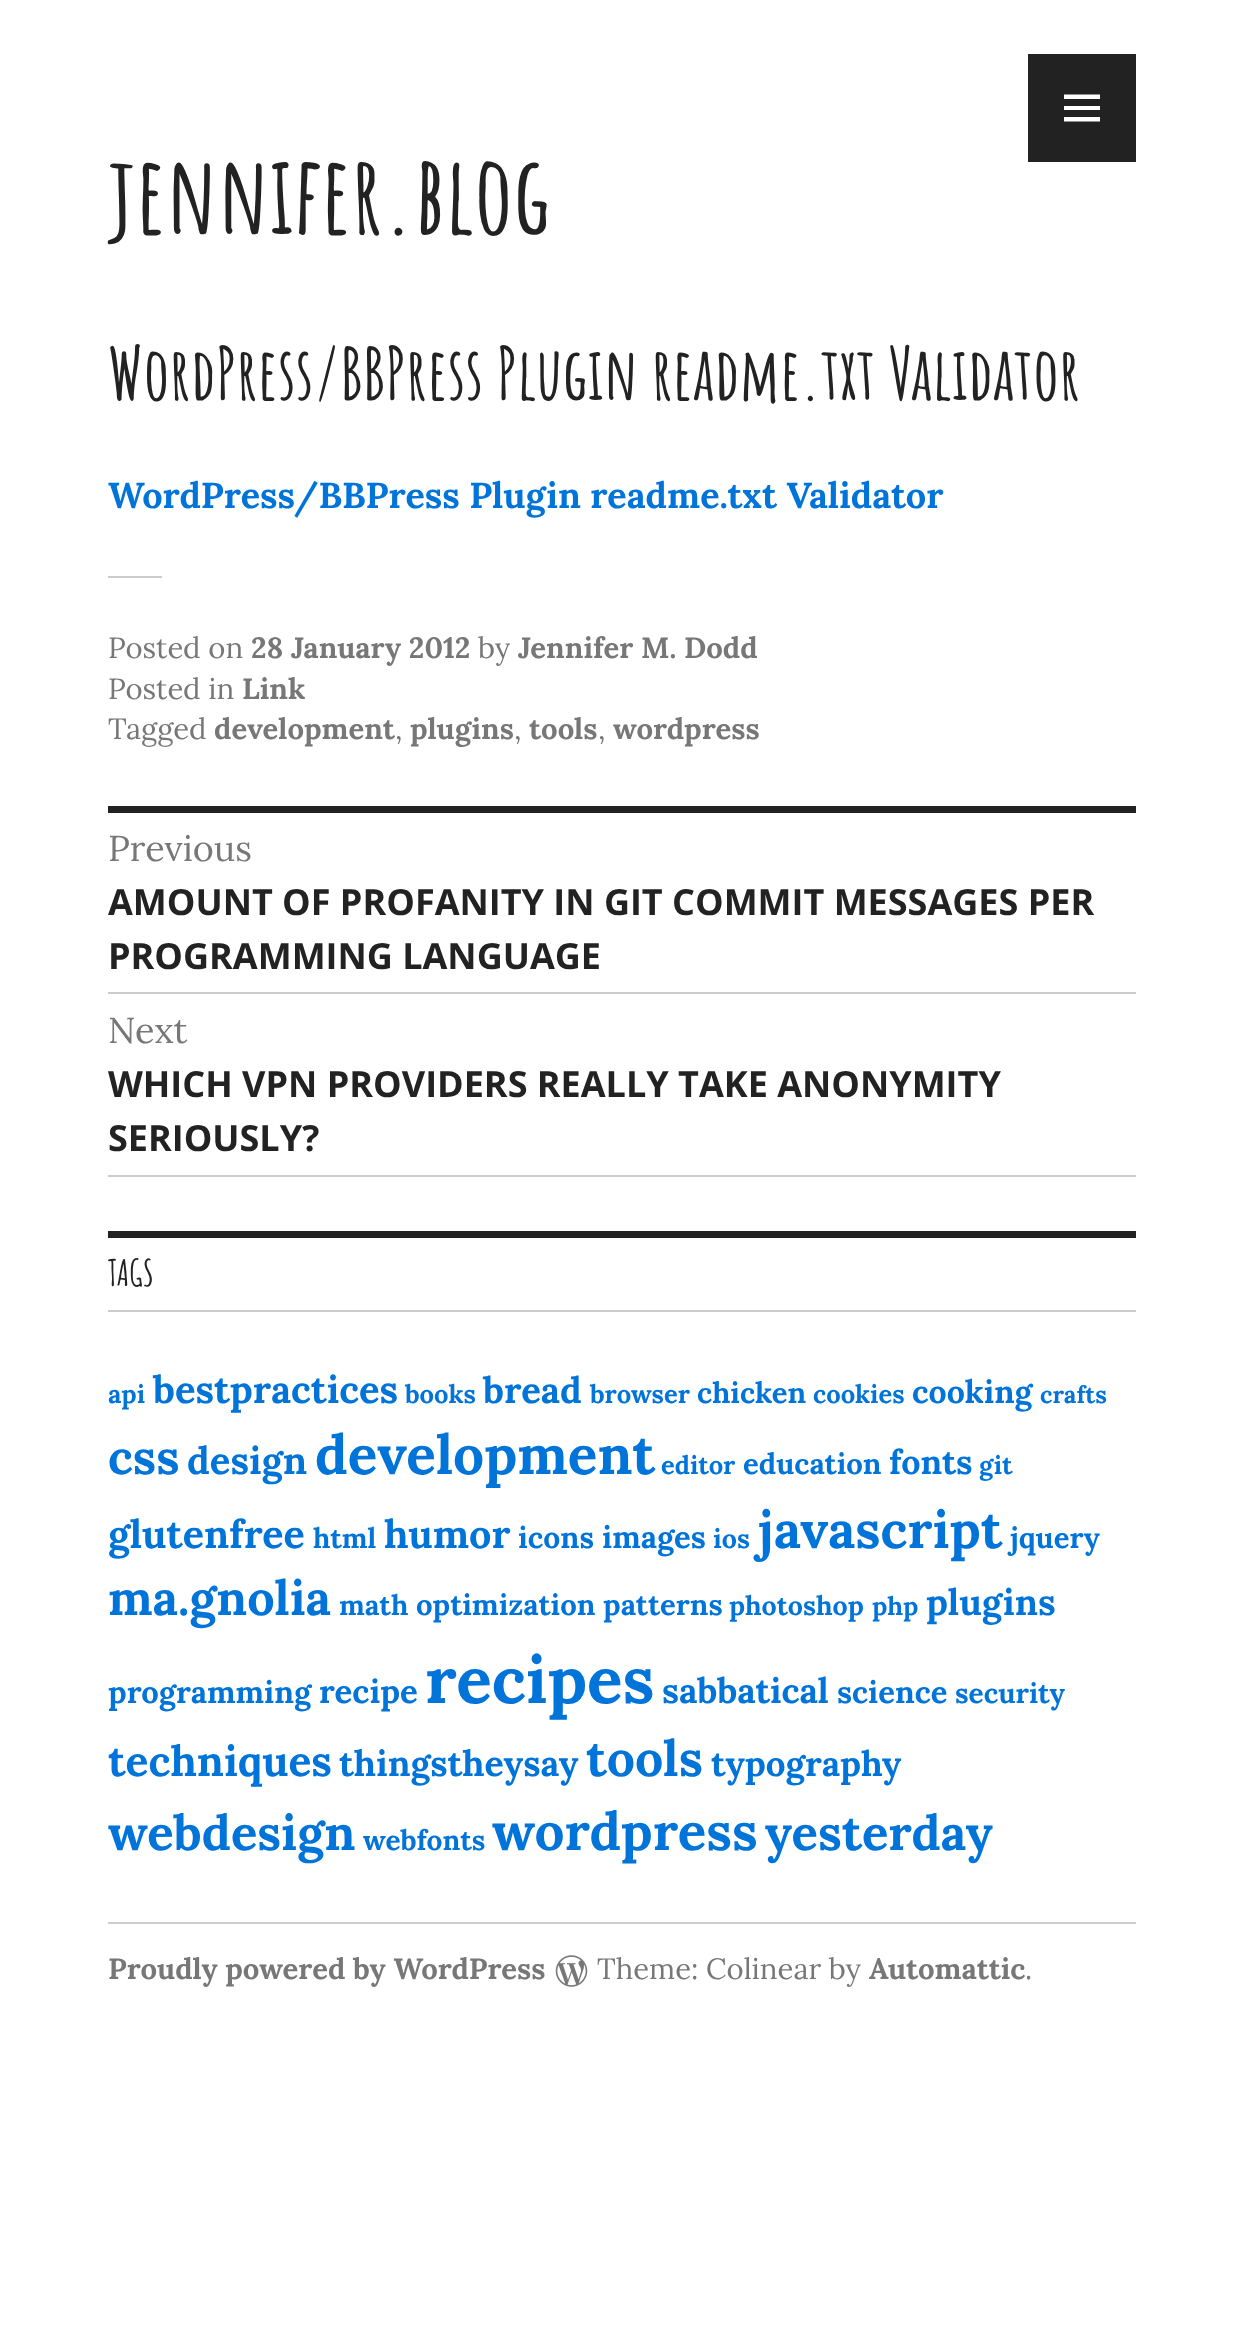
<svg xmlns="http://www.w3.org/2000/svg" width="1243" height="2341">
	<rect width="100%" height="100%" fill="#FFFFFF" />
	<rect x="1028" y="54" width="108" height="108" fill="#222222" />
	<path d="M1064 121.5V117H1100V121.5ZM1064 94.5H1100V99H1064ZM1064 110V106H1100V110Z" fill="#FFFFFF" />
	<text x="108" y="234" font-family="Amatic SC" font-size="108" font-weight="700" fill="#222222">jennifer.blog</text>
	<text x="108" y="400" font-family="Amatic SC" font-size="72" font-weight="700" fill="#222222">WordPress/BBPress Plugin readme.txt Validator</text>
	<text x="108" y="508" font-family="Lora" font-size="36" font-weight="700" fill="#0074D9">WordPress/BBPress Plugin readme.txt Validator</text>
	<rect x="108" y="576" width="54" height="2" fill="#CCCCCC" />
	<text x="108" y="658" font-family="Lora" font-size="29.25" fill="#777777">Posted on</text>
	<text x="251" y="658" font-family="Lora" font-size="29.25" font-weight="700" fill="#777777">28 January 2012</text>
	<text x="478" y="658" font-family="Lora" font-size="29.25" fill="#777777">by</text>
	<text x="518" y="658" font-family="Lora" font-size="29.25" font-weight="700" fill="#777777">Jennifer M. Dodd</text>
	<text x="108" y="699" font-family="Lora" font-size="29.25" fill="#777777">Posted in</text>
	<text x="242" y="699" font-family="Lora" font-size="29.25" font-weight="700" fill="#777777">Link</text>
	<text x="108" y="739" font-family="Lora" font-size="29.25" fill="#777777">Tagged</text>
	<text x="214" y="739" font-family="Lora" font-size="29.25" font-weight="700" fill="#777777">development</text>
	<text x="395" y="739" font-family="Lora" font-size="29.25" fill="#777777">,</text>
	<text x="410" y="739" font-family="Lora" font-size="29.25" font-weight="700" fill="#777777">plugins</text>
	<text x="514" y="739" font-family="Lora" font-size="29.25" fill="#777777">,</text>
	<text x="529" y="739" font-family="Lora" font-size="29.25" font-weight="700" fill="#777777">tools</text>
	<text x="598" y="739" font-family="Lora" font-size="29.25" fill="#777777">,</text>
	<text x="613" y="739" font-family="Lora" font-size="29.25" font-weight="700" fill="#777777">wordpress</text>
	<rect x="108" y="806" width="1028" height="7" fill="#222222" />
	<rect x="108" y="992" width="1028" height="2" fill="#CCCCCC" />
	<text x="108" y="861" font-family="Lora" font-size="36" fill="#777777">Previous</text>
	<g font-family="Open Sans" font-size="36" font-weight="700" fill="#222222">
		<text x="108" y="915">AMOUNT OF PROFANITY IN GIT COMMIT MESSAGES PER</text>
		<text x="108" y="969">PROGRAMMING LANGUAGE</text>
	</g>
	<rect x="108" y="1175" width="1028" height="2" fill="#CCCCCC" />
	<text x="108" y="1043" font-family="Lora" font-size="36" fill="#777777">Next</text>
	<g font-family="Open Sans" font-size="36" font-weight="700" fill="#222222">
		<text x="108" y="1097">WHICH VPN PROVIDERS REALLY TAKE ANONYMITY</text>
		<text x="108" y="1151">SERIOUSLY?</text>
	</g>
	<rect x="108" y="1231" width="1028" height="7" fill="#222222" />
	<rect x="108" y="1310" width="1028" height="2" fill="#CCCCCC" />
	<text x="108" y="1286" font-family="Amatic SC" font-size="36" font-weight="700" fill="#222222">TAGS</text>
	<text x="108" y="1403" font-family="Lora" font-size="25.5" font-weight="700" fill="#0074D9">api</text>
	<text x="153" y="1403" font-family="Lora" font-size="38.25" font-weight="700" fill="#0074D9">bestpractices</text>
	<text x="405" y="1403" font-family="Lora" font-size="25.5" font-weight="700" fill="#0074D9">books</text>
	<text x="483" y="1403" font-family="Lora" font-size="36.5" font-weight="700" fill="#0074D9">bread</text>
	<text x="590" y="1403" font-family="Lora" font-size="25.5" font-weight="700" fill="#0074D9">browser</text>
	<text x="697" y="1403" font-family="Lora" font-size="29.25" font-weight="700" fill="#0074D9">chicken</text>
	<text x="813" y="1403" font-family="Lora" font-size="25.5" font-weight="700" fill="#0074D9">cookies</text>
	<text x="912" y="1403" font-family="Lora" font-size="32" font-weight="700" fill="#0074D9">cooking</text>
	<text x="1040" y="1403" font-family="Lora" font-size="24" font-weight="700" fill="#0074D9">crafts</text>
	<text x="108" y="1474" font-family="Lora" font-size="48" font-weight="700" fill="#0074D9">css</text>
	<text x="187" y="1474" font-family="Lora" font-size="38.25" font-weight="700" fill="#0074D9">design</text>
	<text x="315" y="1474" font-family="Lora" font-size="55" font-weight="700" fill="#0074D9">development</text>
	<text x="661" y="1474" font-family="Lora" font-size="25.5" font-weight="700" fill="#0074D9">editor</text>
	<text x="743" y="1474" font-family="Lora" font-size="29.25" font-weight="700" fill="#0074D9">education</text>
	<text x="889" y="1474" font-family="Lora" font-size="34" font-weight="700" fill="#0074D9">fonts</text>
	<text x="979" y="1474" font-family="Lora" font-size="25.5" font-weight="700" fill="#0074D9">git</text>
	<text x="108" y="1548" font-family="Lora" font-size="39.5" font-weight="700" fill="#0074D9">glutenfree</text>
	<text x="313" y="1548" font-family="Lora" font-size="28" font-weight="700" fill="#0074D9">html</text>
	<text x="384" y="1548" font-family="Lora" font-size="39.5" font-weight="700" fill="#0074D9">humor</text>
	<text x="518" y="1548" font-family="Lora" font-size="30" font-weight="700" fill="#0074D9">icons</text>
	<text x="602" y="1548" font-family="Lora" font-size="31" font-weight="700" fill="#0074D9">images</text>
	<text x="713" y="1548" font-family="Lora" font-size="26.75" font-weight="700" fill="#0074D9">ios</text>
	<text x="758" y="1548" font-family="Lora" font-size="52" font-weight="700" fill="#0074D9">javascript</text>
	<text x="1010" y="1548" font-family="Lora" font-size="29.25" font-weight="700" fill="#0074D9">jquery</text>
	<text x="108" y="1615" font-family="Lora" font-size="48.5" font-weight="700" fill="#0074D9">ma.gnolia</text>
	<text x="339" y="1615" font-family="Lora" font-size="28" font-weight="700" fill="#0074D9">math</text>
	<text x="416" y="1615" font-family="Lora" font-size="29.25" font-weight="700" fill="#0074D9">optimization patterns</text>
	<text x="729" y="1615" font-family="Lora" font-size="26.75" font-weight="700" fill="#0074D9">photoshop</text>
	<text x="872" y="1615" font-family="Lora" font-size="25.5" font-weight="700" fill="#0074D9">php</text>
	<text x="926" y="1615" font-family="Lora" font-size="36.5" font-weight="700" fill="#0074D9">plugins</text>
	<text x="108" y="1703" font-family="Lora" font-size="31" font-weight="700" fill="#0074D9">programming</text>
	<text x="319" y="1703" font-family="Lora" font-size="33" font-weight="700" fill="#0074D9">recipe</text>
	<text x="425" y="1703" font-family="Lora" font-size="66" font-weight="700" fill="#0074D9">recipes</text>
	<text x="662" y="1703" font-family="Lora" font-size="35" font-weight="700" fill="#0074D9">sabbatical</text>
	<text x="837" y="1703" font-family="Lora" font-size="31" font-weight="700" fill="#0074D9">science</text>
	<text x="955" y="1703" font-family="Lora" font-size="28" font-weight="700" fill="#0074D9">security</text>
	<text x="108" y="1776" font-family="Lora" font-size="42.5" font-weight="700" fill="#0074D9">techniques</text>
	<text x="339" y="1776" font-family="Lora" font-size="35.75" font-weight="700" fill="#0074D9">thingstheysay</text>
	<text x="586" y="1776" font-family="Lora" font-size="50" font-weight="700" fill="#0074D9">tools</text>
	<text x="711" y="1776" font-family="Lora" font-size="35" font-weight="700" fill="#0074D9">typography</text>
	<text x="108" y="1850" font-family="Lora" font-size="49" font-weight="700" fill="#0074D9">webdesign</text>
	<text x="363" y="1850" font-family="Lora" font-size="28" font-weight="700" fill="#0074D9">webfonts</text>
	<text x="492" y="1850" font-family="Lora" font-size="53" font-weight="700" fill="#0074D9">wordpress</text>
	<text x="765" y="1850" font-family="Lora" font-size="49" font-weight="700" fill="#0074D9">yesterday</text>
	<rect x="108" y="1922" width="1028" height="2" fill="#CCCCCC" />
	<text x="108" y="1979" font-family="Lora" font-size="29.25" font-weight="700" fill="#777777">Proudly powered by WordPress</text>
	<image x="555" y="1955" width="33" height="32" href="assets/img1.png" />
	<text x="597" y="1979" font-family="Lora" font-size="29.25" fill="#777777">Theme: Colinear by</text>
	<text x="869" y="1979" font-family="Lora" font-size="29.25" font-weight="700" fill="#777777">Automattic</text>
	<text x="1025" y="1979" font-family="Lora" font-size="29.25" fill="#777777">.</text>
</svg>
